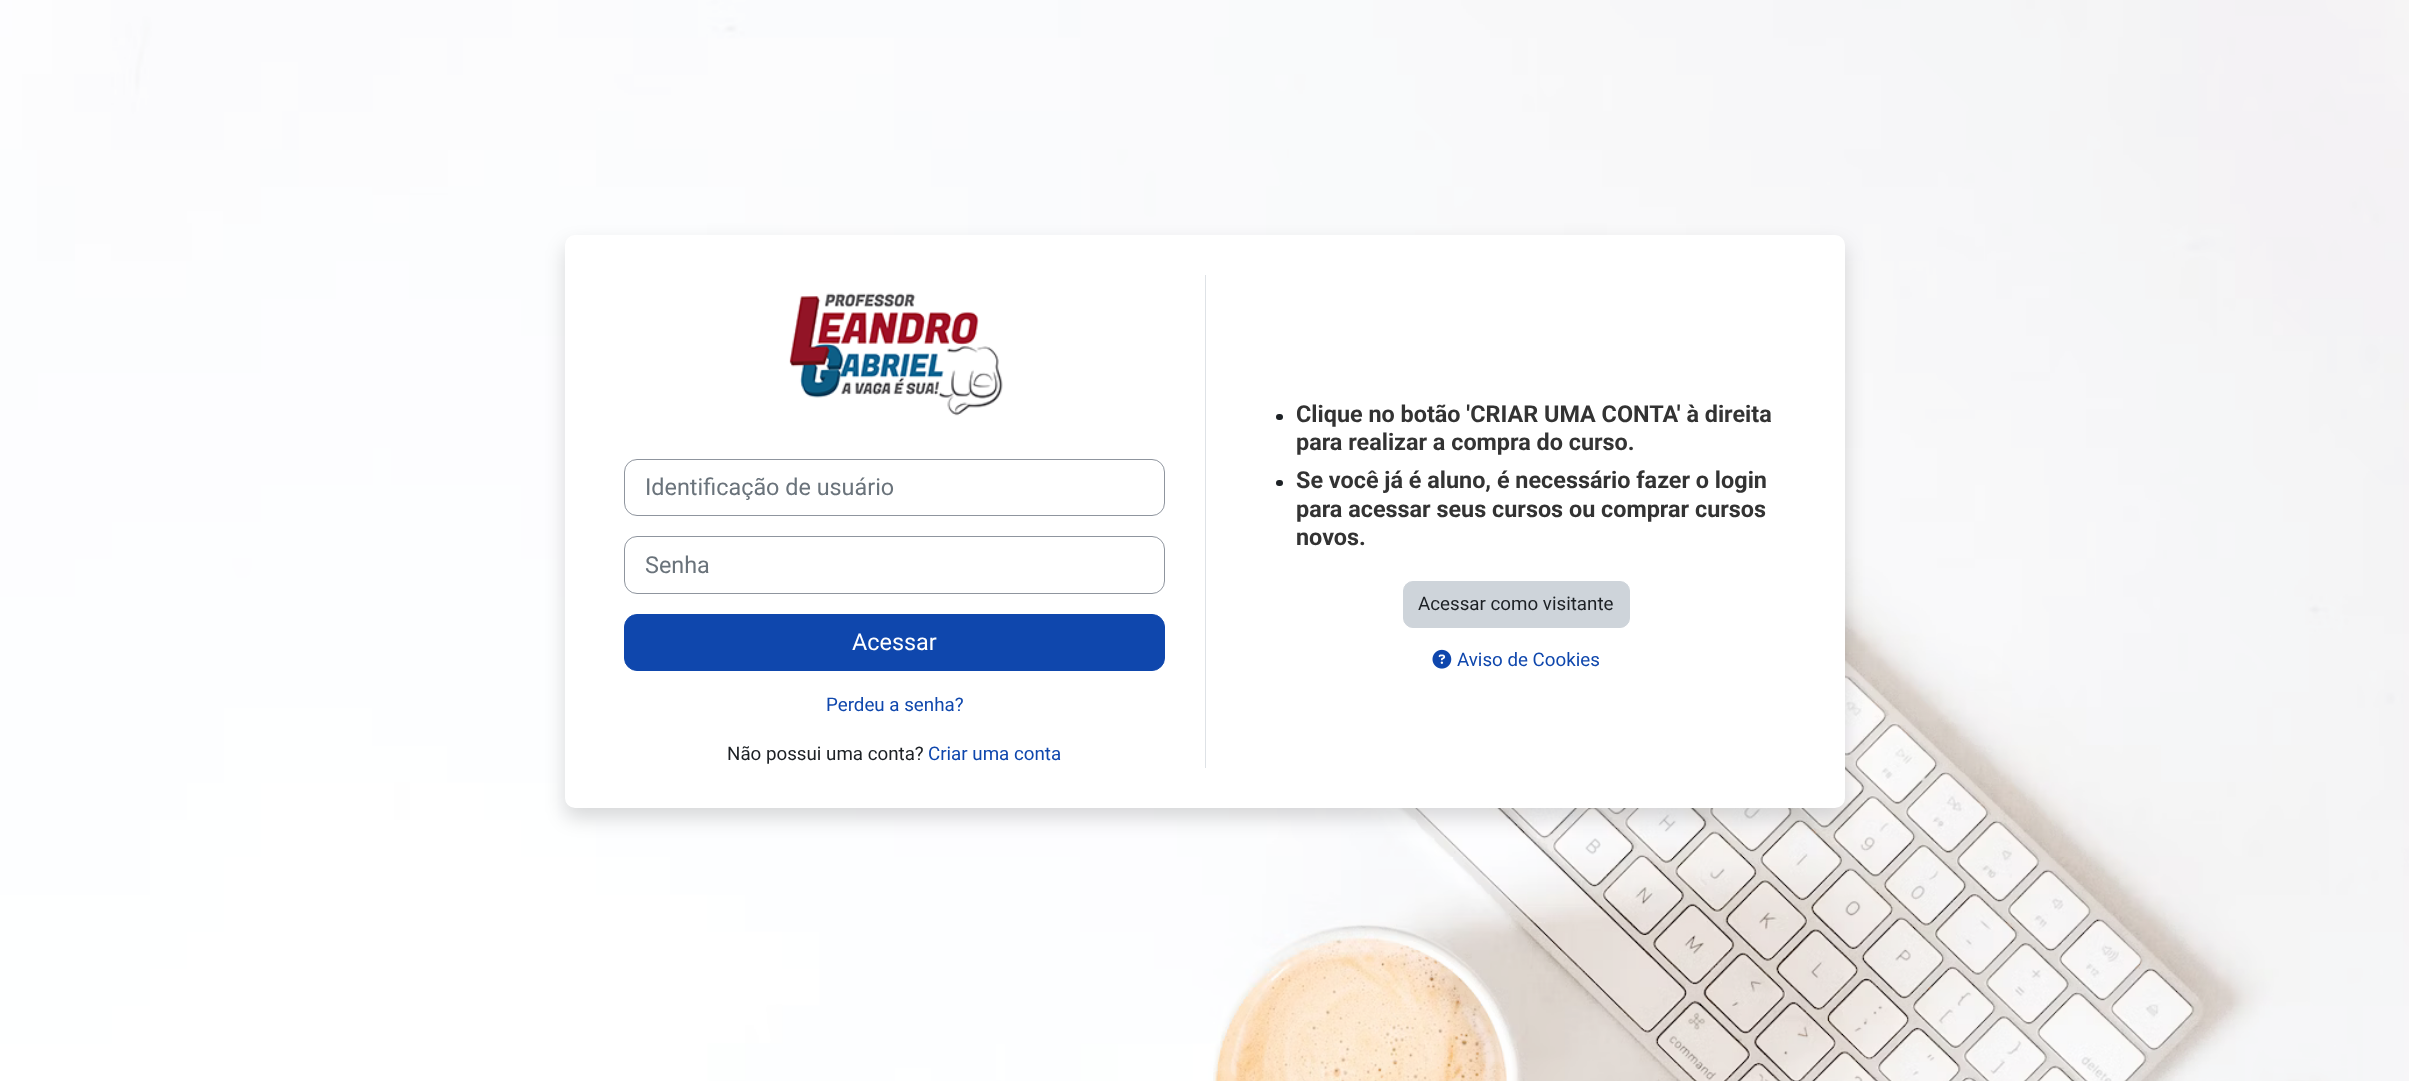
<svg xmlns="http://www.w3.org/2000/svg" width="2409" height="1081">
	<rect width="100%" height="100%" fill="#FFFFFF" />
	<image x="0" y="0" width="2409" height="1081" href="assets/img1.png" />
	<rect x="565" y="245" width="1280" height="573" rx="10" fill="#000000" fill-opacity="0.15" filter="blur(10px)" />
	<rect x="565" y="235" width="1280" height="573" rx="10" fill="#FFFFFF" />
	<image x="789" y="293" width="214" height="123" href="assets/img2.png" />
	<rect x="624.5" y="459.5" width="540" height="56" rx="12.5" fill="none" stroke="#8F959E" />
	<text x="645" y="495" font-family="Roboto" font-size="23.4" fill="#6A737B">Identificação de usuário</text>
	<rect x="624.5" y="536.5" width="540" height="57" rx="12.5" fill="none" stroke="#8F959E" />
	<text x="645" y="573" font-family="Roboto" font-size="23.4" fill="#6A737B">Senha</text>
	<rect x="624.5" y="614.5" width="540" height="56" rx="12.5" fill="#0F47AD" stroke="#0F47AD" />
	<text x="852" y="650" font-family="Roboto" font-size="23.4" fill="#FFFFFF">Acessar</text>
	<text x="826" y="711" font-family="Roboto" font-size="18.75" fill="#0F47AD">Perdeu a senha?</text>
	<text x="727" y="760" font-family="Roboto" font-size="18.75" fill="#1D2125">Não possui uma conta?</text>
	<text x="928" y="760" font-family="Roboto" font-size="18.75" fill="#0F47AD">Criar uma conta</text>
	<rect x="1205" y="275" width="1" height="493" fill="#DEE2E6" />
	<rect x="1276" y="414" width="7" height="6" rx="3" fill="#1D2125" />
	<g font-family="Roboto" font-size="23.4" font-weight="700" fill="#333333">
		<text x="1296" y="422">Clique no botão 'CRIAR UMA CONTA' à direita</text>
		<text x="1296" y="450">para realizar a compra do curso.</text>
	</g>
	<rect x="1276" y="480" width="7" height="6" rx="3" fill="#1D2125" />
	<g font-family="Roboto" font-size="23.4" font-weight="700" fill="#333333">
		<text x="1296" y="488">Se você já é aluno, é necessário fazer o login</text>
		<text x="1296" y="517">para acessar seus cursos ou comprar cursos</text>
		<text x="1296" y="545">novos.</text>
	</g>
	<rect x="1403.5" y="581.5" width="226" height="46" rx="9.5" fill="#CED4DA" stroke="#CED4DA" />
	<text x="1418" y="610" font-family="Roboto" font-size="18.75" fill="#1D2125">Acessar como visitante</text>
	<image x="1432" y="649" width="20" height="20" href="assets/img3.png" />
	<text x="1457" y="666" font-family="Roboto" font-size="18.75" fill="#0F47AD">Aviso de Cookies</text>
</svg>
